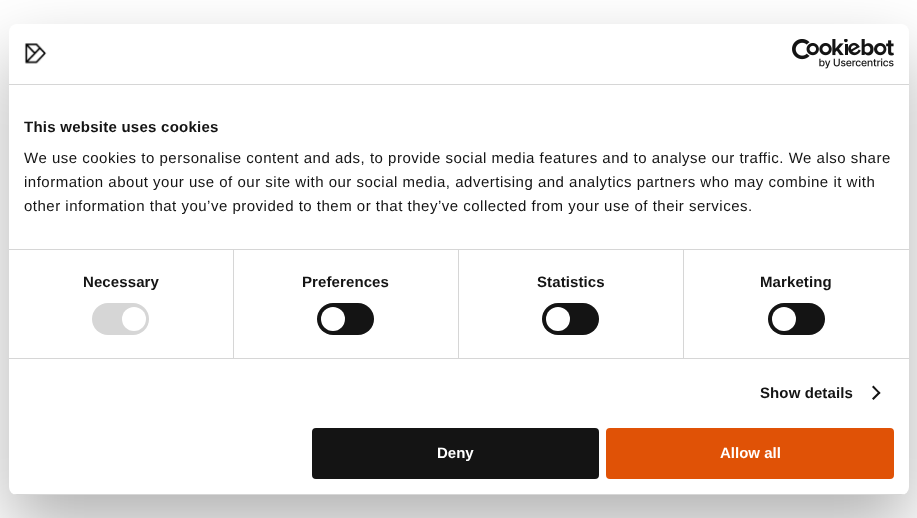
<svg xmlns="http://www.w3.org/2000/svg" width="917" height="518">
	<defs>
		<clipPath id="clip1"><rect x="9" y="24" width="900" height="471" rx="8" /></clipPath>
	</defs>
	<rect width="100%" height="100%" fill="#FFFFFF" />
	<rect x="9" y="56" width="900" height="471" rx="8" fill="#000000" fill-opacity="0.3" filter="blur(34px)" />
	<rect x="9" y="24" width="900" height="471" rx="8" fill="#FFFFFF" />
	<rect x="9" y="84" width="900" height="1" fill="#D6D6D6" />
	<image x="24" y="43" width="23" height="21" href="assets/img1.png" />
	<image x="792" y="39" width="102" height="30" href="assets/img2.png" />
	<rect x="9" y="249" width="900" height="1" fill="#D6D6D6" />
	<text x="24" y="132" font-family="Liberation Sans" font-size="15" font-weight="700" letter-spacing="0.25" fill="#141414">This website uses cookies</text>
	<g font-family="Liberation Sans" font-size="15" letter-spacing="0.5" fill="#141414">
		<text x="24" y="163">We use cookies to personalise content and ads, to provide social media features and to analyse our traffic. We also share</text>
		<text x="24" y="187">information about your use of our site with our social media, advertising and analytics partners who may combine it with</text>
		<text x="24" y="211">other information that you’ve provided to them or that they’ve collected from your use of their services.</text>
	</g>
	<rect x="9" y="358" width="900" height="1" fill="#D6D6D6" />
	<rect x="233" y="250" width="1" height="108" fill="#D6D6D6" />
	<text x="83" y="287" font-family="Liberation Sans" font-size="15" font-weight="700" letter-spacing="0.1" fill="#141414">Necessary</text>
	<rect x="92" y="303" width="57" height="32" rx="16" fill="#D6D6D6" />
	<circle cx="134" cy="319" r="12" fill="#FFFFFF" />
	<rect x="458" y="250" width="1" height="108" fill="#D6D6D6" />
	<text x="302" y="287" font-family="Liberation Sans" font-size="15" font-weight="700" letter-spacing="0.1" fill="#141414">Preferences</text>
	<rect x="317" y="303" width="57" height="32" rx="16" fill="#141414" />
	<circle cx="333" cy="319" r="12" fill="#FFFFFF" />
	<rect x="683" y="250" width="1" height="108" fill="#D6D6D6" />
	<text x="537" y="287" font-family="Liberation Sans" font-size="15" font-weight="700" letter-spacing="0.1" fill="#141414">Statistics</text>
	<rect x="542" y="303" width="57" height="32" rx="16" fill="#141414" />
	<circle cx="558" cy="319" r="12" fill="#FFFFFF" />
	<text x="760" y="287" font-family="Liberation Sans" font-size="15" font-weight="700" letter-spacing="0.1" fill="#141414">Marketing</text>
	<rect x="768" y="303" width="57" height="32" rx="16" fill="#141414" />
	<circle cx="784" cy="319" r="12" fill="#FFFFFF" />
	<text x="760" y="398" font-family="Liberation Sans" font-size="15" font-weight="700" letter-spacing="0.1" fill="#141414">Show details</text>
	<path d="M873.5 385.5L880.5 393L879 394L872 387Z" fill="#141414" />
	<path d="M879 391.5L880.5 393L873.5 400L872 398.5Z" fill="#141414" />
	<g clip-path="url(#clip1)">
		<rect x="9" y="494" width="900" height="1" fill="#D6D6D6" />
	</g>
	<rect x="313" y="429" width="285" height="49" rx="3" fill="#141414" stroke="#141414" stroke-width="2" />
	<text x="437" y="458" font-family="Liberation Sans" font-size="15" font-weight="700" fill="#FFFFFF">Deny</text>
	<rect x="607" y="429" width="286" height="49" rx="3" fill="#E05206" stroke="#E05206" stroke-width="2" />
	<text x="720" y="458" font-family="Liberation Sans" font-size="15" font-weight="700" fill="#FFFFFF">Allow all</text>
</svg>
